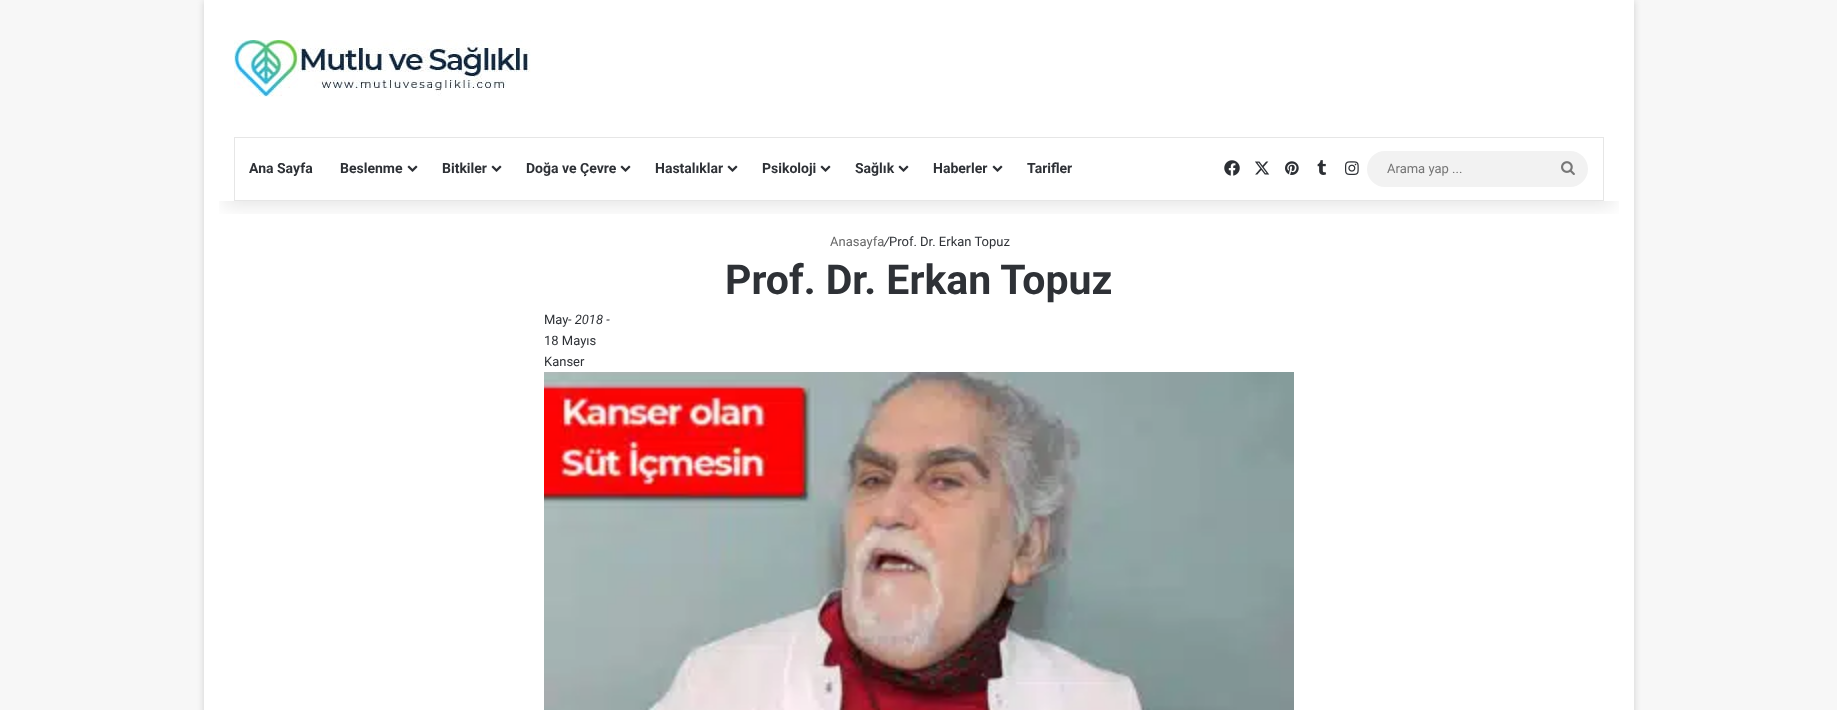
<svg xmlns="http://www.w3.org/2000/svg" width="1837" height="710">
	<defs>
		<clipPath id="clip1"><rect x="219" y="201" width="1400" height="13" /></clipPath>
	</defs>
	<rect width="100%" height="100%" fill="#F7F7F7" />
	<rect x="204" y="1" width="1430" height="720" fill="#ABABAB" fill-opacity="0.5" filter="blur(3.5px)" />
	<rect x="204" y="0" width="1430" height="710" fill="#FFFFFF" />
	<g clip-path="url(#clip1)">
		<rect x="224" y="45" width="1390" height="161" fill="#000000" fill-opacity="0.1" filter="blur(10px)" />
	</g>
	<image x="234" y="40" width="297" height="57" href="assets/img1.png" />
	<rect x="234.5" y="137.5" width="1369" height="63" fill="none" stroke="#E6E6E6" />
	<g font-family="Roboto" font-size="14" font-weight="700" fill="#2E3136">
		<text x="249" y="173">Ana Sayfa</text>
		<text x="340" y="173">Beslenme</text>
	</g>
	<image x="407" y="165" width="11" height="7" href="assets/img2.png" />
	<text x="442" y="173" font-family="Roboto" font-size="14" font-weight="700" fill="#2E3136">Bitkiler</text>
	<image x="491" y="165" width="11" height="7" href="assets/img2.png" />
	<text x="526" y="173" font-family="Roboto" font-size="14" font-weight="700" fill="#2E3136">Doğa ve Çevre</text>
	<image x="620" y="165" width="11" height="7" href="assets/img2.png" />
	<text x="655" y="173" font-family="Roboto" font-size="14" font-weight="700" fill="#2E3136">Hastalıklar</text>
	<image x="727" y="165" width="11" height="7" href="assets/img2.png" />
	<text x="762" y="173" font-family="Roboto" font-size="14" font-weight="700" fill="#2E3136">Psikoloji</text>
	<image x="820" y="165" width="11" height="7" href="assets/img2.png" />
	<text x="855" y="173" font-family="Roboto" font-size="14" font-weight="700" fill="#2E3136">Sağlık</text>
	<image x="898" y="165" width="11" height="7" href="assets/img2.png" />
	<text x="933" y="173" font-family="Roboto" font-size="14" font-weight="700" fill="#2E3136">Haberler</text>
	<image x="992" y="165" width="11" height="7" href="assets/img2.png" />
	<text x="1027" y="173" font-family="Roboto" font-size="14" font-weight="700" fill="#2E3136">Tarifler</text>
	<image x="1224" y="160" width="16" height="16" href="assets/img3.png" />
	<image x="1255" y="161" width="15" height="14" href="assets/img4.png" />
	<image x="1285" y="161" width="14" height="14" href="assets/img5.png" />
	<image x="1317" y="160" width="10" height="15" href="assets/img6.png" />
	<image x="1345" y="161" width="14" height="14" href="assets/img7.png" />
	<rect x="1367" y="151" width="221" height="36" rx="18" fill="#F2F2F2" />
	<text x="1387" y="173" font-family="Roboto" font-size="13" fill="#757575">Arama yap ...</text>
	<image x="1561" y="161" width="14" height="14" href="assets/img8.png" />
	<text x="830" y="246" font-family="Roboto" font-size="13" fill="#686868">Anasayfa</text>
	<text x="884" y="246" font-family="Roboto" font-size="13" font-style="italic" fill="#2E3136">/</text>
	<text x="889" y="246" font-family="Roboto" font-size="13" fill="#2E3136">Prof. Dr. Erkan Topuz</text>
	<text x="725" y="294" font-family="Roboto" font-size="41" font-weight="700" fill="#2E3136">Prof. Dr. Erkan Topuz</text>
	<text x="544" y="324" font-family="Roboto" font-size="13" fill="#2E3136">May</text>
	<text x="568" y="324" font-family="Roboto" font-size="13" font-style="italic" fill="#2E3136">- 2018 -</text>
	<g font-family="Roboto" font-size="13" fill="#2E3136">
		<text x="544" y="345">18 Mayıs</text>
		<text x="544" y="366">Kanser</text>
	</g>
	<image x="544" y="372" width="750" height="338" href="assets/img9.png" />
</svg>
